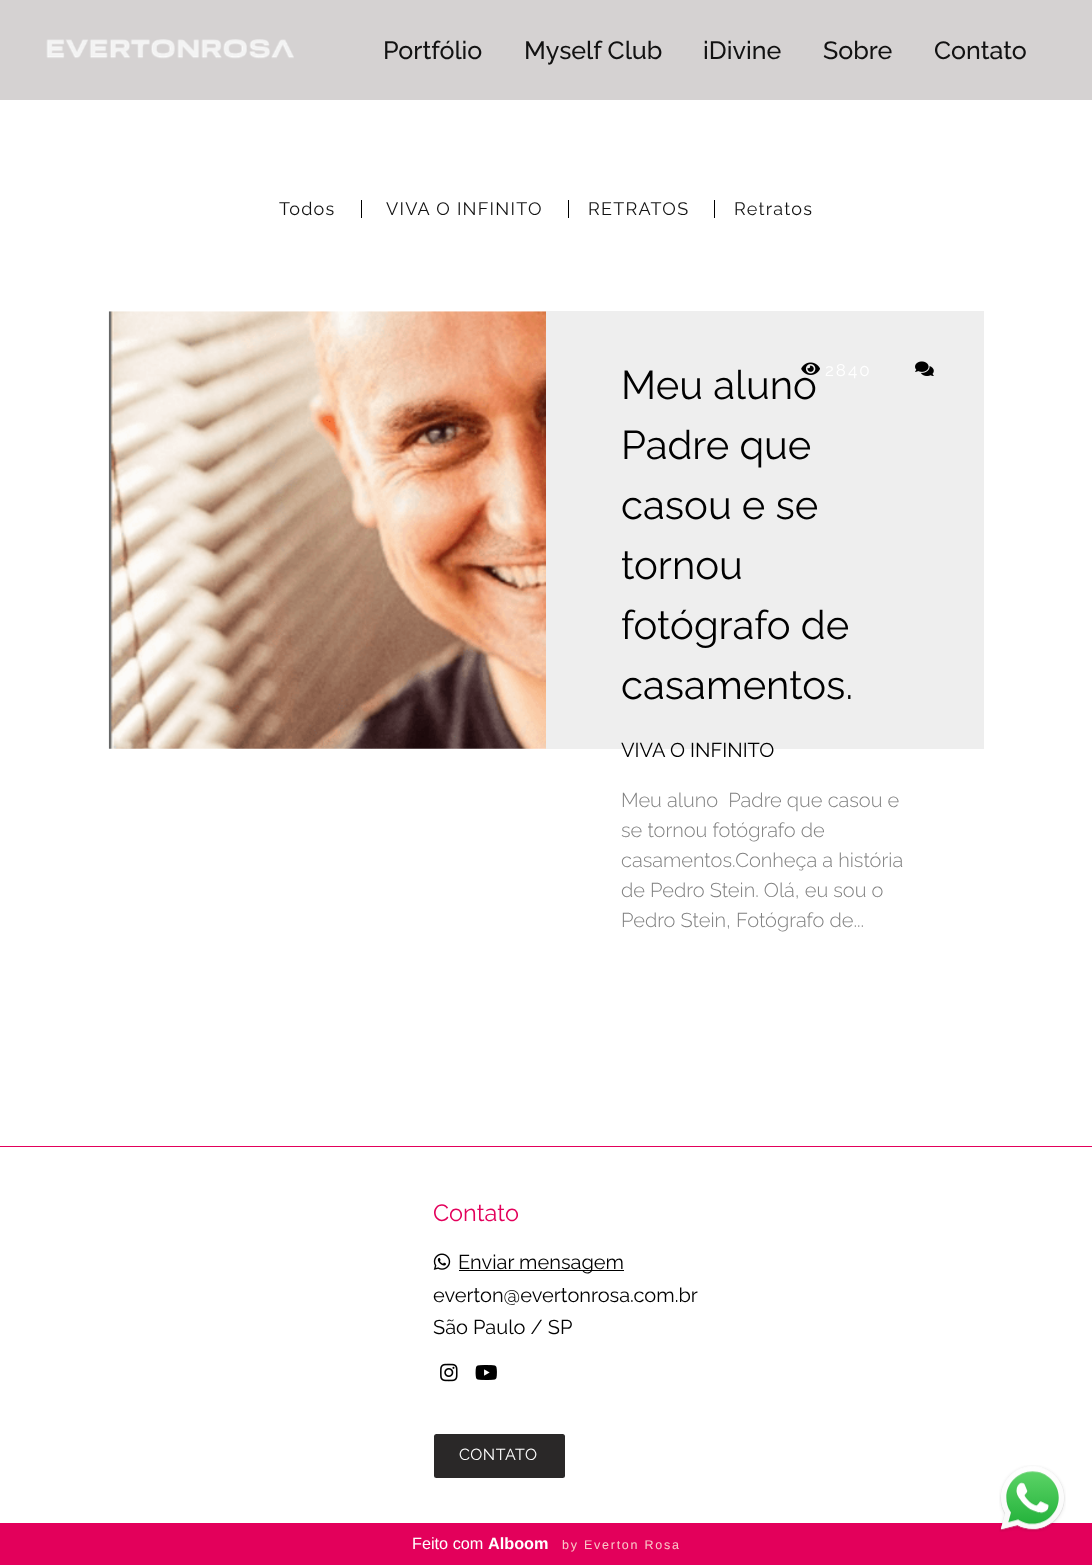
<svg xmlns="http://www.w3.org/2000/svg" width="1092" height="1565">
	<rect width="100%" height="100%" fill="#FFFFFF" />
	<rect x="0" y="0" width="1092" height="100" fill="#D5D2D2" />
	<image x="46" y="39" width="248" height="20" href="assets/img1.png" />
	<g font-family="Raleway" font-size="25" font-weight="500" fill="#121212">
		<text x="383" y="59">Portfólio</text>
		<text x="524" y="59">Myself Club</text>
		<text x="703" y="59">iDivine</text>
		<text x="823" y="59">Sobre</text>
		<text x="934" y="59">Contato</text>
	</g>
	<rect x="361" y="200" width="1" height="18" fill="#000000" />
	<text x="279" y="215" font-family="Raleway" font-size="18" letter-spacing="1.25" fill="#121212">Todos</text>
	<rect x="568" y="200" width="1" height="18" fill="#000000" />
	<text x="386" y="215" font-family="Raleway" font-size="18" letter-spacing="1.25" fill="#121212">VIVA O INFINITO</text>
	<rect x="714" y="200" width="1" height="18" fill="#000000" />
	<g font-family="Raleway" font-size="18" letter-spacing="1.25" fill="#121212">
		<text x="588" y="215">RETRATOS</text>
		<text x="734" y="215">Retratos</text>
	</g>
	<image x="108" y="311" width="438" height="438" href="assets/img2.png" />
	<rect x="546" y="311" width="438" height="438" fill="#EEEEEE" />
	<text x="621" y="399" font-family="Raleway" font-size="40" fill="#000000">Meu aluno</text>
	<image x="801" y="362" width="19" height="13" href="assets/img3.png" />
	<text x="825" y="376" font-family="Raleway" font-size="17" letter-spacing="2" fill="#FFFFFF">2840</text>
	<image x="915" y="361" width="19" height="15" href="assets/img4.png" />
	<g font-family="Raleway" font-size="40" fill="#000000">
		<text x="621" y="459">Padre que</text>
		<text x="621" y="519">casou e se</text>
		<text x="621" y="579">tornou</text>
		<text x="621" y="639">fotógrafo de</text>
		<text x="621" y="699">casamentos.</text>
	</g>
	<text x="621" y="757" font-family="Raleway" font-size="20" fill="#000000">VIVA O INFINITO</text>
	<g font-family="Raleway" font-size="20" font-weight="300" fill="#808080">
		<text x="621" y="807" xml:space="preserve">Meu aluno  Padre que casou e</text>
		<text x="621" y="837">se tornou fotógrafo de</text>
		<text x="621" y="867">casamentos.Conheça a história</text>
		<text x="621" y="897">de Pedro Stein. Olá, eu sou o</text>
		<text x="621" y="927">Pedro Stein, Fotógrafo de...</text>
	</g>
	<rect x="0" y="1146" width="1092" height="1" fill="#E3005B" />
	<text x="433" y="1221" font-family="Raleway" font-size="23.5" fill="#E3005B">Contato</text>
	<image x="433" y="1253" width="18" height="17" href="assets/img5.png" />
	<rect x="459" y="1270" width="165" height="1" fill="#000000" />
	<g font-family="Raleway" font-size="20" fill="#000000">
		<text x="458" y="1269">Enviar mensagem</text>
		<text x="433" y="1302">everton@evertonrosa.com.br</text>
		<text x="433" y="1334">São Paulo / SP</text>
	</g>
	<image x="440" y="1363" width="18" height="19" href="assets/img6.png" />
	<image x="475" y="1365" width="22" height="15" href="assets/img7.png" />
	<rect x="434" y="1434" width="131" height="44" rx="2.5" fill="#2A2828" />
	<text x="459" y="1460" font-family="Raleway" font-size="16" letter-spacing="0.5" fill="#FFFFFF">CONTATO</text>
	<rect x="0" y="1523" width="1092" height="42" fill="#E3005B" />
	<image x="999" y="1465" width="67" height="67" href="assets/img8.png" />
	<text x="412" y="1549" font-family="Liberation Sans" font-size="16.25" fill="#FFFFFF">Feito com</text>
	<text x="488" y="1549" font-family="Liberation Sans" font-size="16.25" font-weight="700" fill="#FFFFFF">Alboom</text>
	<text x="562" y="1549" font-family="Liberation Sans" font-size="12.5" letter-spacing="1.75" fill="#FAC8C8">by Everton Rosa</text>
</svg>
